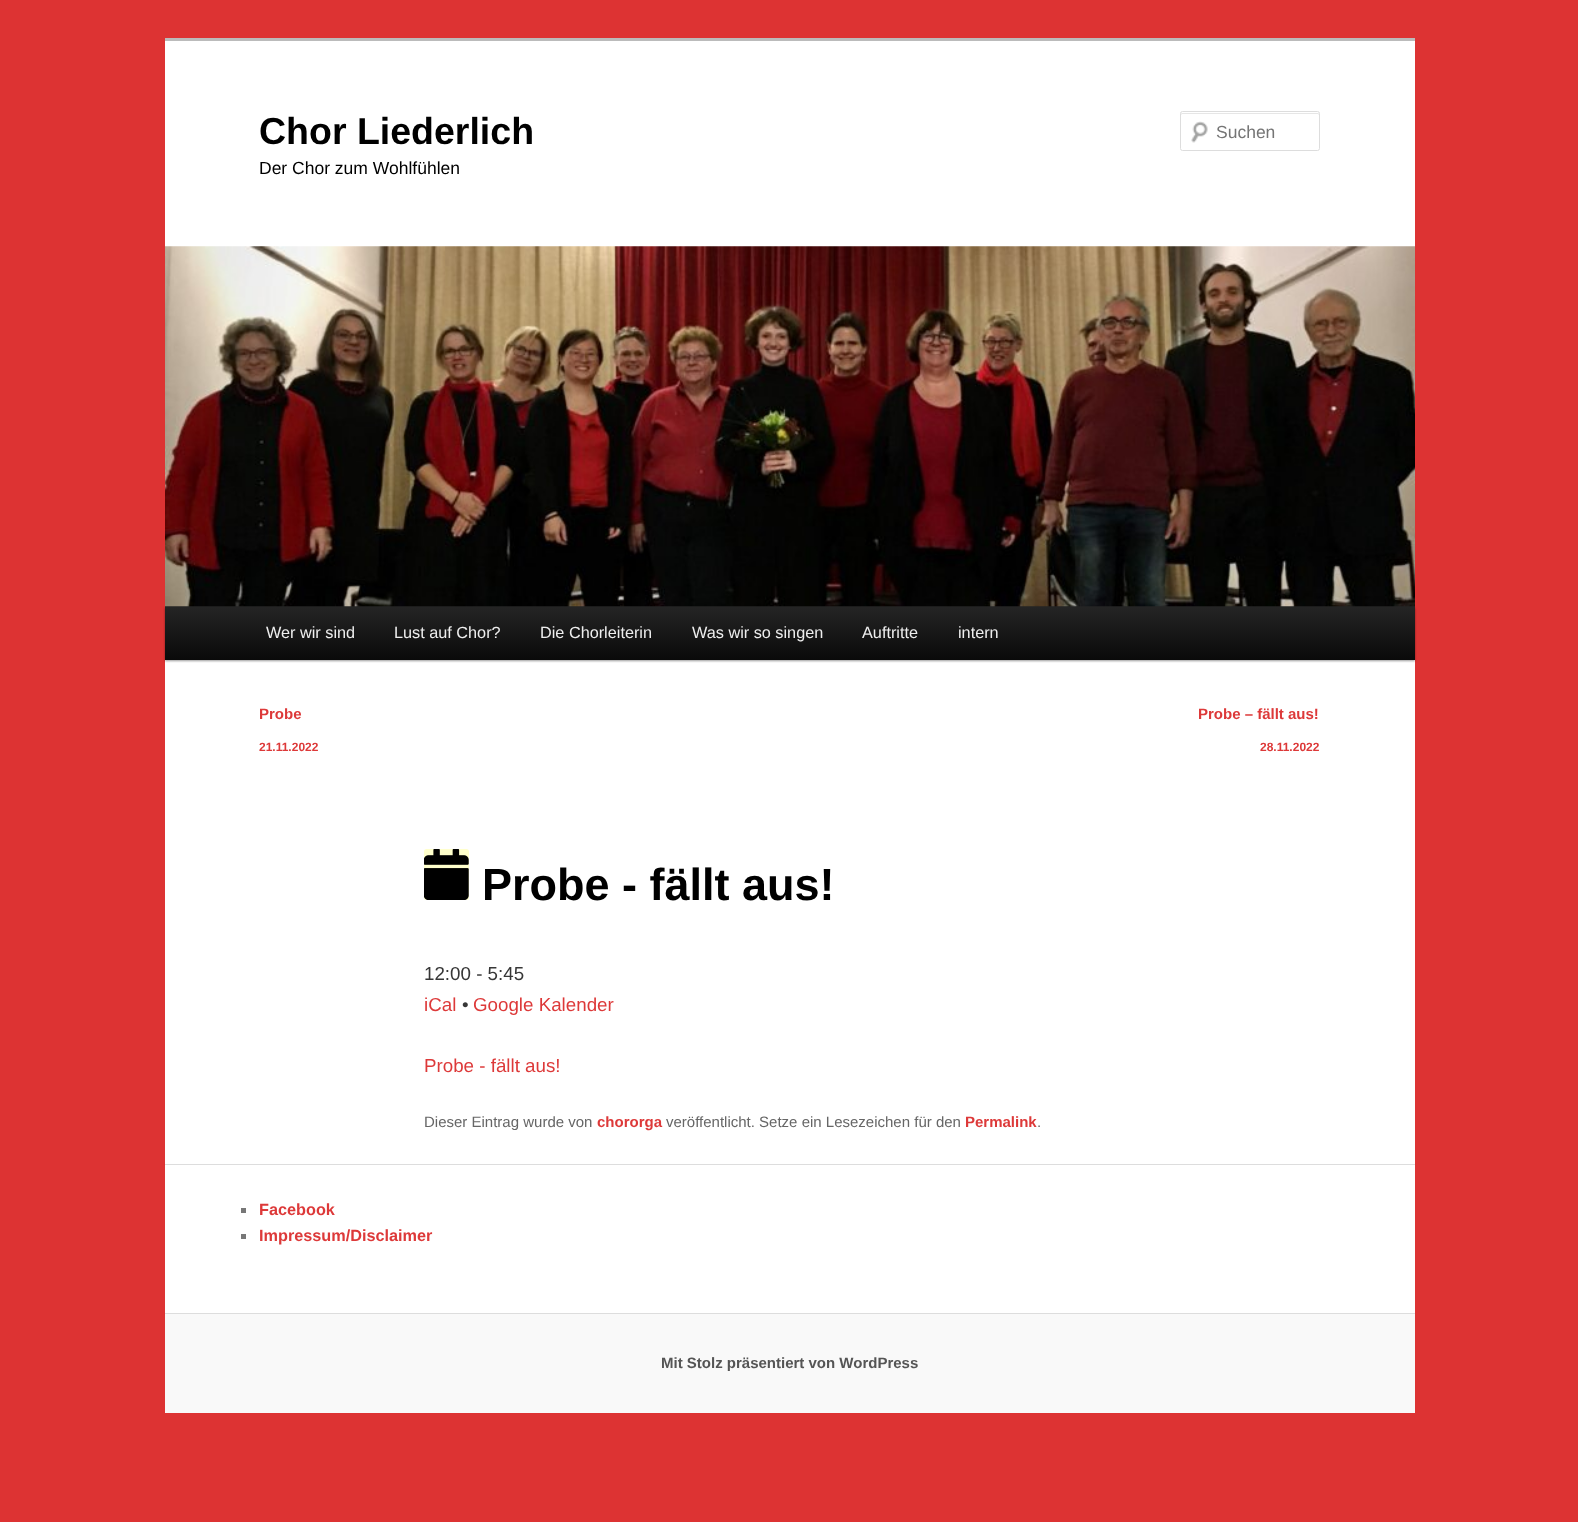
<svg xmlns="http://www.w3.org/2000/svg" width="1578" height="1522">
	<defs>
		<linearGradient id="g1" gradientUnits="userSpaceOnUse" x1="790" y1="606" x2="790" y2="660"><stop offset="0" stop-color="#252525" /><stop offset="1" stop-color="#0A0A0A" /></linearGradient>
	</defs>
	<rect width="100%" height="100%" fill="#DD3333" />
	<rect x="165" y="41" width="1250" height="1272" fill="#FFFFFF" />
	<rect x="165" y="38" width="1250" height="3" fill="#BBBBBB" />
	<text x="259" y="144" font-family="Liberation Sans" font-size="37.5" font-weight="700" fill="#000000">Chor Liederlich</text>
	<text x="259" y="174" font-family="Liberation Sans" font-size="17.5" fill="#000000">Der Chor zum Wohlfühlen</text>
	<image x="1191" y="121" width="17" height="22" href="assets/img1.png" />
	<path d="M1182 114H1318L1319 115C1319 114 1319 113 1318 113H1182C1181 113 1181 114 1181 115Z" fill="#E6E6E6" />
	<rect x="1180.5" y="111.5" width="139" height="39" rx="2" fill="none" stroke="#DDDDDD" />
	<text x="1216" y="138" font-family="Liberation Sans" font-size="17.5" fill="#757575">Suchen</text>
	<rect x="165" y="608" width="1250" height="53" fill="#000000" fill-opacity="0.4" filter="blur(1px)" />
	<rect x="165" y="606" width="1250" height="54" fill="url(#g1)" />
	<image x="165" y="246" width="1250" height="361" href="assets/img2.png" />
	<g font-family="Liberation Sans" font-size="16.25" fill="#EEEEEE">
		<text x="266" y="638">Wer wir sind</text>
		<text x="394" y="638">Lust auf Chor?</text>
		<text x="540" y="638">Die Chorleiterin</text>
		<text x="692" y="638">Was wir so singen</text>
		<text x="862" y="638">Auftritte</text>
		<text x="958" y="638">intern</text>
	</g>
	<text x="259" y="719" font-family="Liberation Sans" font-size="15" font-weight="700" fill="#DD3939">Probe</text>
	<text x="259" y="751" font-family="Liberation Sans" font-size="12" font-weight="700" fill="#DD3939">21.11.2022</text>
	<text x="1198" y="719" font-family="Liberation Sans" font-size="15" font-weight="700" fill="#DD3939">Probe – fällt aus!</text>
	<text x="1260" y="751" font-family="Liberation Sans" font-size="12" font-weight="700" fill="#DD3939">28.11.2022</text>
	<rect x="424" y="849" width="45" height="51" rx="2.5" fill="#FFFFCC" />
	<image x="424" y="849" width="45" height="51" href="assets/img3.png" />
	<text x="482" y="900" font-family="Liberation Sans" font-size="45" font-weight="700" fill="#000000">Probe - fällt aus!</text>
	<text x="424" y="980" font-family="Liberation Sans" font-size="18.75" fill="#373737">12:00 - 5:45</text>
	<text x="424" y="1011" font-family="Liberation Sans" font-size="18.75" fill="#DD3939">iCal</text>
	<text x="462" y="1011" font-family="Liberation Sans" font-size="18.75" fill="#373737">•</text>
	<g font-family="Liberation Sans" font-size="18.75" fill="#DD3939">
		<text x="473" y="1011">Google Kalender</text>
		<text x="424" y="1072">Probe - fällt aus!</text>
	</g>
	<text x="424" y="1127" font-family="Liberation Sans" font-size="15" fill="#666666">Dieser Eintrag wurde von</text>
	<text x="597" y="1127" font-family="Liberation Sans" font-size="15" font-weight="700" fill="#DD3939">chororga</text>
	<text x="666" y="1127" font-family="Liberation Sans" font-size="15" fill="#666666">veröffentlicht. Setze ein Lesezeichen für den</text>
	<text x="965" y="1127" font-family="Liberation Sans" font-size="15" font-weight="700" fill="#DD3939">Permalink</text>
	<text x="1037" y="1127" font-family="Liberation Sans" font-size="15" fill="#666666">.</text>
	<rect x="165" y="1164" width="1250" height="1" fill="#DDDDDD" />
	<rect x="241" y="1208" width="5" height="5" fill="#777777" />
	<text x="259" y="1215" font-family="Liberation Sans" font-size="16.25" font-weight="700" fill="#DD3939">Facebook</text>
	<rect x="241" y="1234" width="5" height="5" fill="#777777" />
	<text x="259" y="1241" font-family="Liberation Sans" font-size="16.25" font-weight="700" fill="#DD3939">Impressum/Disclaimer</text>
	<rect x="165" y="1314" width="1250" height="99" fill="#F9F9F9" />
	<rect x="165" y="1313" width="1250" height="1" fill="#DDDDDD" />
	<text x="661" y="1368" font-family="Liberation Sans" font-size="15" font-weight="700" fill="#555555">Mit Stolz präsentiert von WordPress</text>
</svg>
